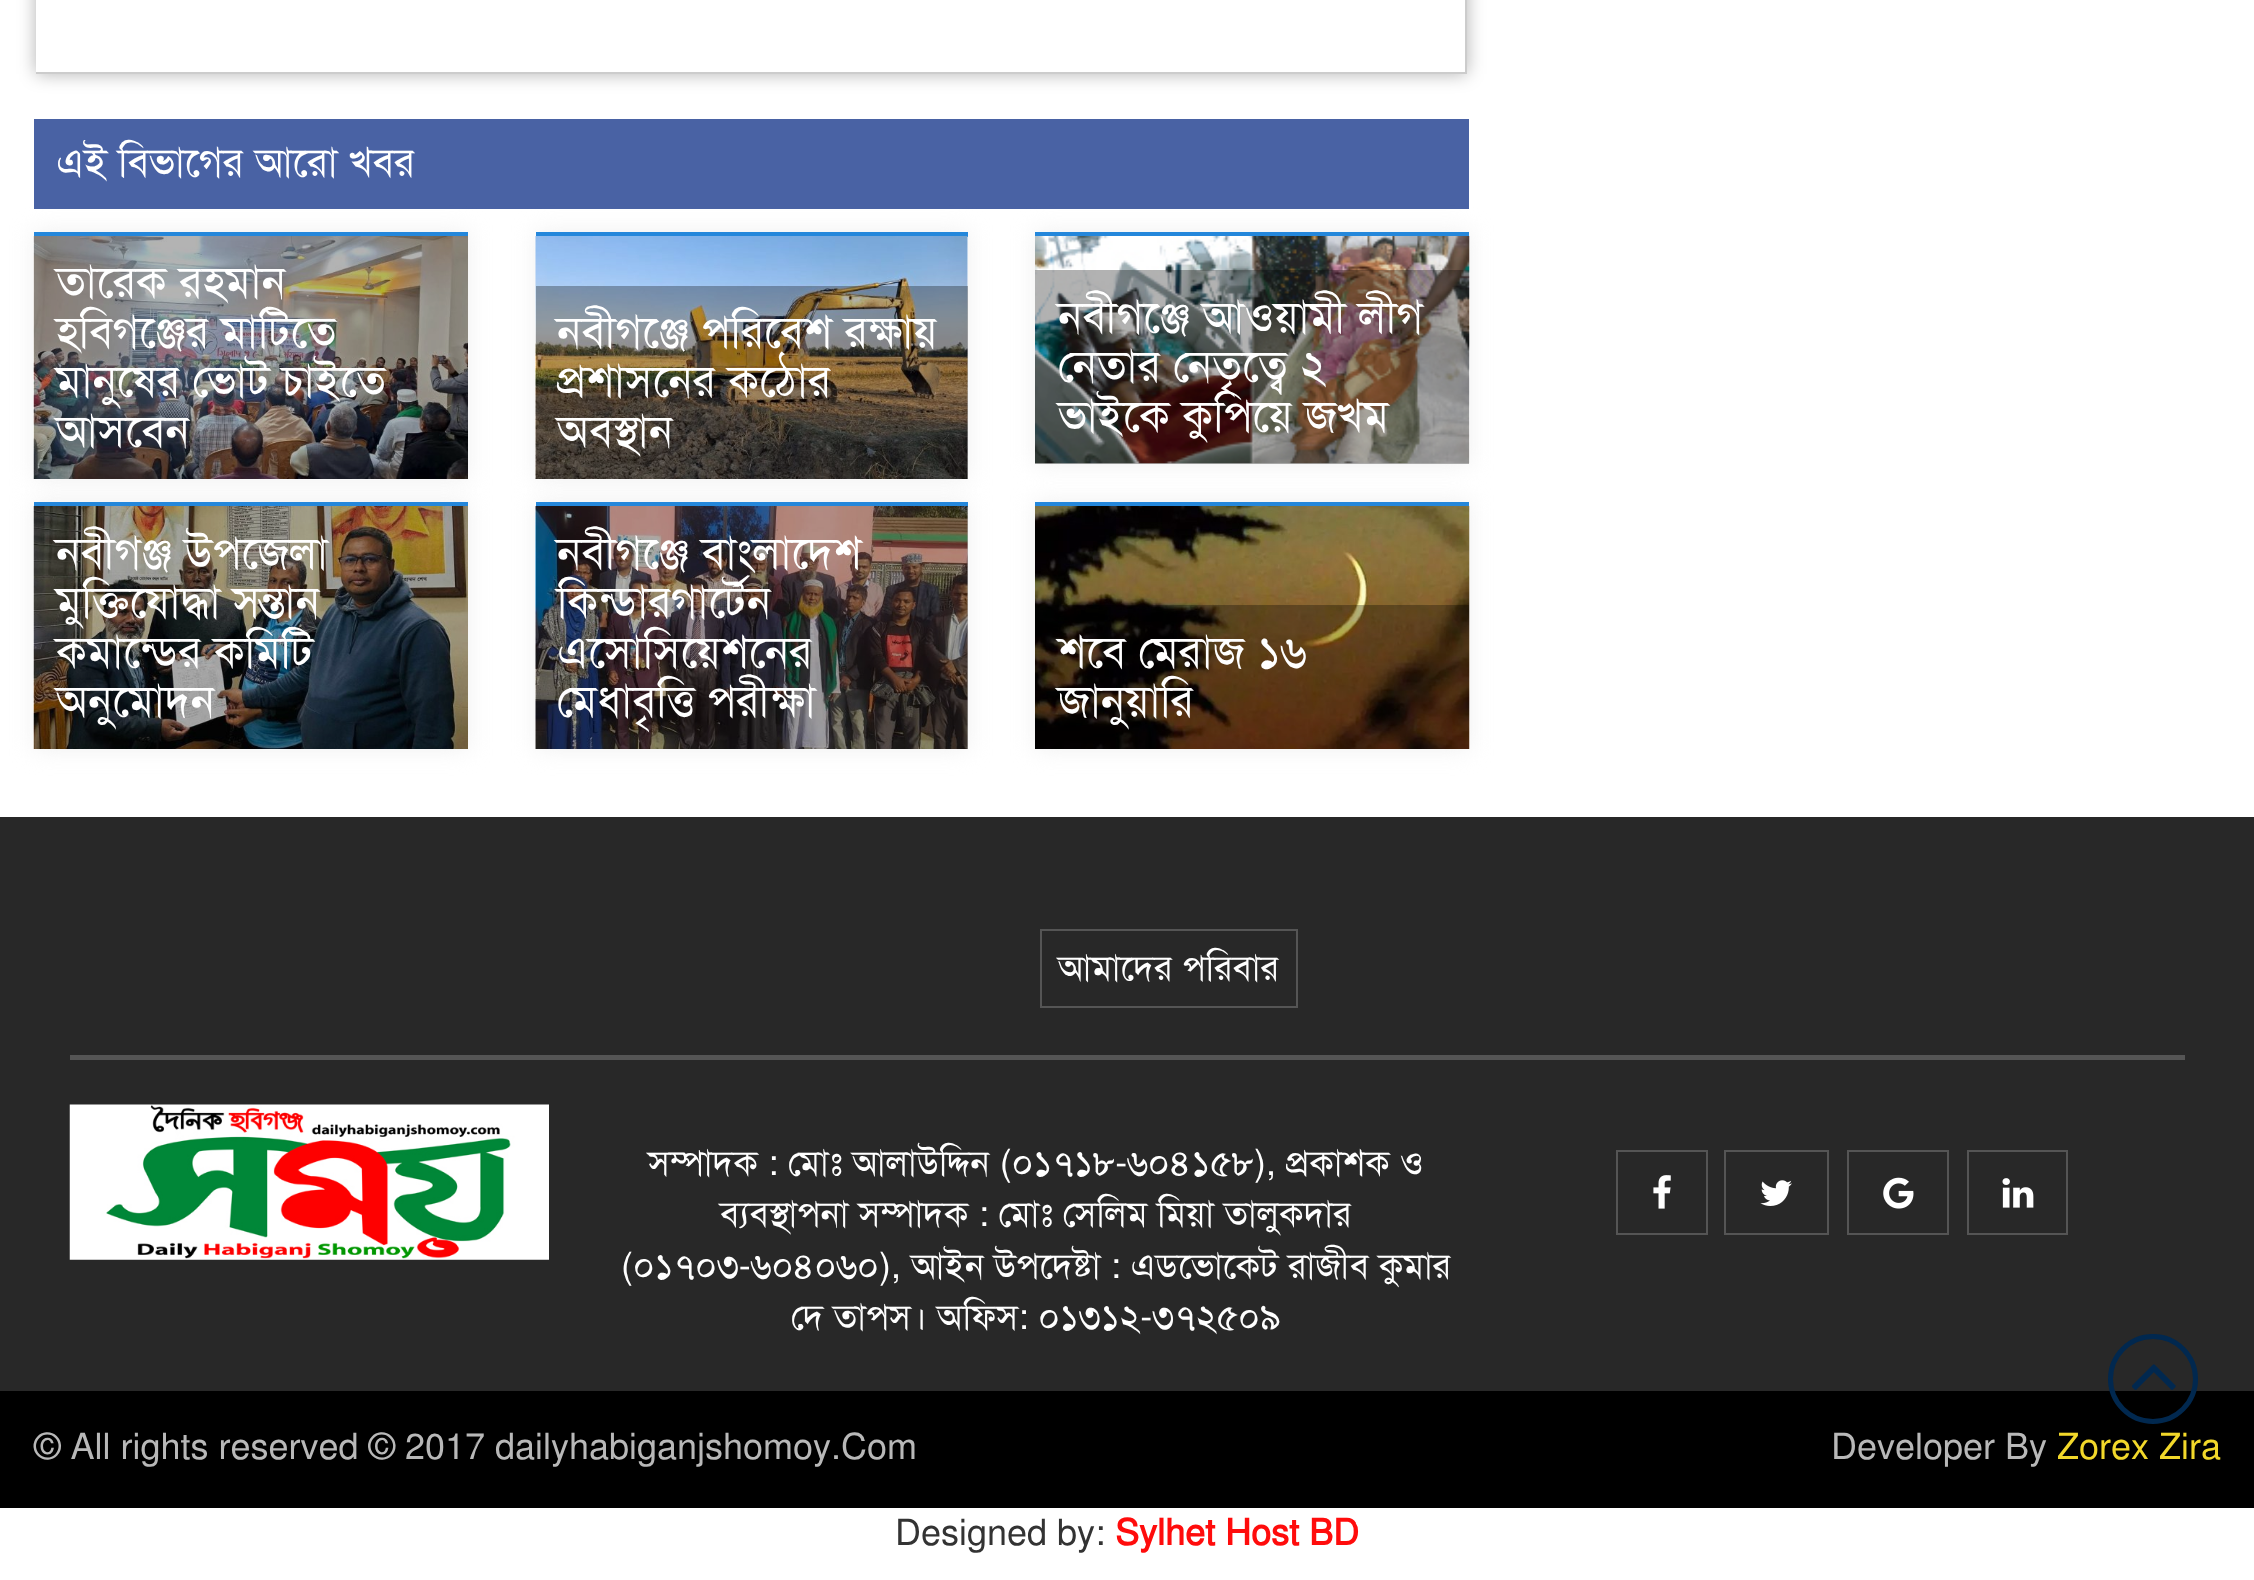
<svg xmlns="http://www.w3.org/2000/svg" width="2254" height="1580">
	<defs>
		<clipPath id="clip1"><path d="M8 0H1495V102H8ZM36-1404H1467V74H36Z" clip-rule="evenodd" /></clipPath>
	</defs>
	<rect width="100%" height="100%" fill="#FFFFFF" />
	<g clip-path="url(#clip1)">
		<rect x="36" y="-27" width="1431" height="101" fill="#000000" fill-opacity="0.3" filter="blur(9px)" />
	</g>
	<rect x="1465" y="0" width="2" height="74" fill="#CCCCCC" />
	<rect x="36" y="72" width="1431" height="2" fill="#CCCCCC" />
	<rect x="34" y="119" width="1435" height="90" fill="#4962A4" />
	<text x="56" y="176" font-family="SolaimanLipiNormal" font-size="40.5" fill="#FFFFFF">এই বিভাগের আরো খবর</text>
	<rect x="34" y="232" width="434" height="247" fill="#EFEFEF" filter="blur(11px)" />
	<rect x="34" y="232" width="434" height="4" fill="#2487DB" />
	<image x="33" y="236" width="435" height="243" href="assets/img1.png" />
	<g font-family="SolaimanLipiNormal" font-size="45" fill="#FFFFFF">
		<text x="56" y="297">তারেক রহমান</text>
		<text x="56" y="347">হবিগঞ্জের মাটিতে</text>
		<text x="56" y="396">মানুষের ভোট চাইতে</text>
		<text x="56" y="446">আসবেন</text>
	</g>
	<rect x="536" y="232" width="432" height="247" fill="#EFEFEF" filter="blur(11px)" />
	<rect x="967" y="237" width="1" height="242" fill="#FFFFFF" />
	<rect x="536" y="232" width="432" height="5" fill="#2487DB" />
	<image x="535" y="236" width="433" height="243" href="assets/img2.png" />
	<rect x="536" y="286" width="432" height="193" fill="#000000" fill-opacity="0.3" />
	<g font-family="SolaimanLipiNormal" font-size="45" fill="#FFFFFF">
		<text x="557" y="347">নবীগঞ্জে পরিবেশ রক্ষায়</text>
		<text x="557" y="396">প্রশাসনের কঠোর</text>
		<text x="557" y="446">অবস্থান</text>
	</g>
	<rect x="1035" y="232" width="434" height="232" fill="#EFEFEF" filter="blur(11px)" />
	<rect x="1035" y="463" width="434" height="1" fill="#FFFFFF" />
	<rect x="1035" y="232" width="434" height="4" fill="#2487DB" />
	<image x="1035" y="236" width="435" height="228" href="assets/img3.png" />
	<rect x="1035" y="270" width="434" height="194" fill="#000000" fill-opacity="0.3" />
	<g font-family="SolaimanLipiNormal" font-size="45" fill="#FFFFFF">
		<text x="1058" y="332">নবীগঞ্জে আওয়ামী লীগ</text>
		<text x="1058" y="381">নেতার নেতৃত্বে ২</text>
		<text x="1058" y="431">ভাইকে কুপিয়ে জখম</text>
	</g>
	<rect x="34" y="502" width="434" height="247" fill="#EFEFEF" filter="blur(11px)" />
	<rect x="34" y="502" width="434" height="4" fill="#2487DB" />
	<image x="33" y="506" width="435" height="243" href="assets/img4.png" />
	<g font-family="SolaimanLipiNormal" font-size="45" fill="#FFFFFF">
		<text x="56" y="568">নবীগঞ্জ উপজেলা</text>
		<text x="56" y="617">মুক্তিযোদ্ধা সন্তান</text>
		<text x="56" y="667">কমান্ডের কমিটি</text>
		<text x="56" y="716">অনুমোদন</text>
	</g>
	<rect x="536" y="502" width="432" height="247" fill="#EFEFEF" filter="blur(11px)" />
	<rect x="967" y="507" width="1" height="242" fill="#FFFFFF" />
	<rect x="536" y="502" width="432" height="5" fill="#2487DB" />
	<image x="535" y="506" width="433" height="243" href="assets/img5.png" />
	<rect x="536" y="506" width="432" height="243" fill="#000000" fill-opacity="0.3" />
	<g font-family="SolaimanLipiNormal" font-size="45" fill="#FFFFFF">
		<text x="557" y="568">নবীগঞ্জে বাংলাদেশ</text>
		<text x="557" y="617">কিন্ডারগার্টেন</text>
		<text x="557" y="667">এসোসিয়েশনের</text>
		<text x="557" y="716">মেধাবৃত্তি পরীক্ষা</text>
	</g>
	<rect x="1035" y="502" width="434" height="247" fill="#EFEFEF" filter="blur(11px)" />
	<rect x="1035" y="502" width="434" height="4" fill="#2487DB" />
	<image x="1035" y="506" width="435" height="243" href="assets/img6.png" />
	<rect x="1035" y="605" width="434" height="144" fill="#000000" fill-opacity="0.3" />
	<g font-family="SolaimanLipiNormal" font-size="45" fill="#FFFFFF">
		<text x="1058" y="667">শবে মেরাজ ১৬</text>
		<text x="1058" y="716">জানুয়ারি</text>
	</g>
	<rect x="0" y="817" width="2254" height="574" fill="#282828" />
	<rect x="70" y="1055" width="2115" height="5" fill="#555555" />
	<rect x="1041" y="930" width="256" height="77" fill="none" stroke="#555555" stroke-width="2" />
	<text x="1058" y="980" font-family="SolaimanLipiNormal" font-size="36" fill="#FFFFFF">আমাদের পরিবার</text>
	<image x="69" y="1104" width="480" height="156" href="assets/img7.png" />
	<g font-family="SolaimanLipiNormal" font-size="36" fill="#FFFFFF">
		<text x="648" y="1175">সম্পাদক : মোঃ আলাউদ্দিন (০১৭১৮-৬০৪১৫৮), প্রকাশক ও</text>
		<text x="720" y="1226">ব্যবস্থাপনা সম্পাদক : মোঃ সেলিম মিয়া তালুকদার</text>
		<text x="621" y="1278">(০১৭০৩-৬০৪০৬০), আইন উপদেষ্টা : এডভোকেট রাজীব কুমার</text>
		<text x="791" y="1329">দে তাপস। অফিস: ০১৩১২-৩৭২৫০৯</text>
	</g>
	<rect x="1617" y="1151" width="90" height="83" fill="none" stroke="#555555" stroke-width="2" />
	<image x="1653" y="1175" width="18" height="34" href="assets/img8.png" />
	<rect x="1725" y="1151" width="103" height="83" fill="none" stroke="#555555" stroke-width="2" />
	<image x="1760" y="1180" width="32" height="26" href="assets/img9.png" />
	<rect x="1848" y="1151" width="100" height="83" fill="none" stroke="#555555" stroke-width="2" />
	<image x="1883" y="1177" width="31" height="32" href="assets/img10.png" />
	<rect x="1968" y="1151" width="99" height="83" fill="none" stroke="#555555" stroke-width="2" />
	<image x="2002" y="1178" width="32" height="30" href="assets/img11.png" />
	<rect x="0" y="1391" width="2254" height="117" fill="#000000" />
	<circle cx="2153" cy="1379" r="42.5" fill="none" stroke="#01284F" stroke-width="5" />
	<image x="2132" y="1364" width="44" height="26" href="assets/img12.png" />
	<g font-family="SolaimanLipiNormal" font-size="36" fill="#B8B8B8">
		<text x="34" y="1459">© All rights reserved © 2017 dailyhabiganjshomoy.Com</text>
		<text x="1831" y="1459">Developer By</text>
	</g>
	<text x="2057" y="1459" font-family="SolaimanLipiNormal" font-size="36" fill="#F2D82A">Zorex Zira</text>
	<text x="895" y="1545" font-family="SolaimanLipiNormal" font-size="36" fill="#333333">Designed by:</text>
	<text x="1115" y="1545" font-family="SolaimanLipiNormal" font-size="36" font-weight="700" fill="#FF0C0C">Sylhet Host BD</text>
</svg>
